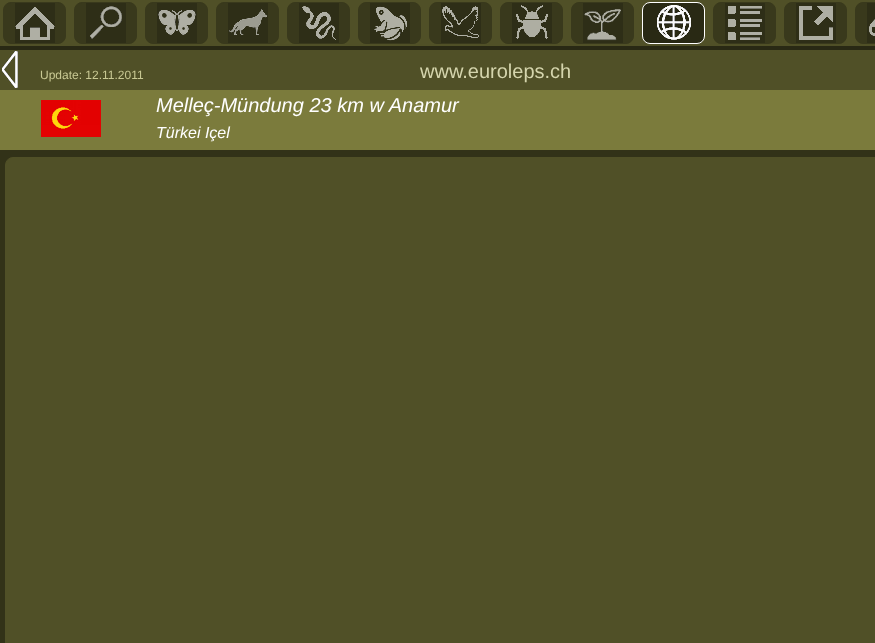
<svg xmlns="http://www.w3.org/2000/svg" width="875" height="643">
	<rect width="100%" height="100%" fill="#292914" />
	<rect x="0" y="0" width="875" height="46" fill="#505027" />
	<rect x="3.5" y="2.5" width="62" height="41" rx="7.5" fill="#39391C" stroke="#39391C" />
	<image x="15" y="3" width="40" height="40" href="assets/img1.png" />
	<rect x="74.5" y="2.5" width="62" height="41" rx="7.5" fill="#39391C" stroke="#39391C" />
	<image x="86" y="3" width="40" height="40" href="assets/img2.png" />
	<rect x="145.5" y="2.5" width="62" height="41" rx="7.5" fill="#39391C" stroke="#39391C" />
	<image x="157" y="3" width="40" height="40" href="assets/img3.png" />
	<rect x="216.5" y="2.5" width="62" height="41" rx="7.5" fill="#39391C" stroke="#39391C" />
	<image x="228" y="3" width="40" height="40" href="assets/img4.png" />
	<rect x="287.5" y="2.5" width="62" height="41" rx="7.5" fill="#39391C" stroke="#39391C" />
	<image x="299" y="3" width="40" height="40" href="assets/img5.png" />
	<rect x="358.5" y="2.5" width="62" height="41" rx="7.5" fill="#39391C" stroke="#39391C" />
	<image x="370" y="3" width="40" height="40" href="assets/img6.png" />
	<rect x="429.5" y="2.5" width="62" height="41" rx="7.5" fill="#39391C" stroke="#39391C" />
	<image x="441" y="3" width="40" height="40" href="assets/img7.png" />
	<rect x="500.5" y="2.5" width="62" height="41" rx="7.5" fill="#39391C" stroke="#39391C" />
	<image x="512" y="3" width="40" height="40" href="assets/img8.png" />
	<rect x="571.5" y="2.5" width="62" height="41" rx="7.5" fill="#39391C" stroke="#39391C" />
	<image x="583" y="3" width="40" height="40" href="assets/img9.png" />
	<rect x="642.5" y="2.5" width="62" height="41" rx="7.5" fill="#292914" stroke="#FFFFFF" />
	<image x="657" y="5" width="34" height="35" href="assets/img10.png" />
	<rect x="713.5" y="2.5" width="62" height="41" rx="7.5" fill="#39391C" stroke="#39391C" />
	<image x="725" y="3" width="40" height="40" href="assets/img11.png" />
	<rect x="784.5" y="2.5" width="62" height="41" rx="7.5" fill="#39391C" stroke="#39391C" />
	<image x="796" y="3" width="40" height="40" href="assets/img12.png" />
	<rect x="855.5" y="2.5" width="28" height="41" rx="7.5" fill="#39391C" stroke="#39391C" />
	<image x="867" y="3" width="8" height="40" href="assets/img13.png" />
	<rect x="0" y="50" width="875" height="40" fill="#505027" />
	<image x="2" y="51" width="16" height="37" href="assets/img14.png" />
	<text x="40" y="79" font-family="Liberation Sans" font-size="12" fill="#C9C994">Update: 12.11.2011</text>
	<text x="420" y="78" font-family="Liberation Sans" font-size="20" fill="#D5D5AD">www.euroleps.ch</text>
	<rect x="0" y="90" width="875" height="60" fill="#7B7B3C" />
	<image x="41" y="100" width="60" height="37" href="assets/img15.png" />
	<text x="156" y="112" font-family="Liberation Sans" font-size="20" font-style="italic" fill="#FFFFFF">Melleç-Mündung 23 km w Anamur</text>
	<text x="156" y="138" font-family="Liberation Sans" font-size="16" font-style="italic" fill="#FFFFFF">Türkei Içel</text>
	<rect x="0" y="150" width="875" height="493" fill="#323218" />
	<rect x="5.5" y="157.5" width="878" height="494" rx="7.5" fill="#505027" stroke="#505027" />
</svg>
